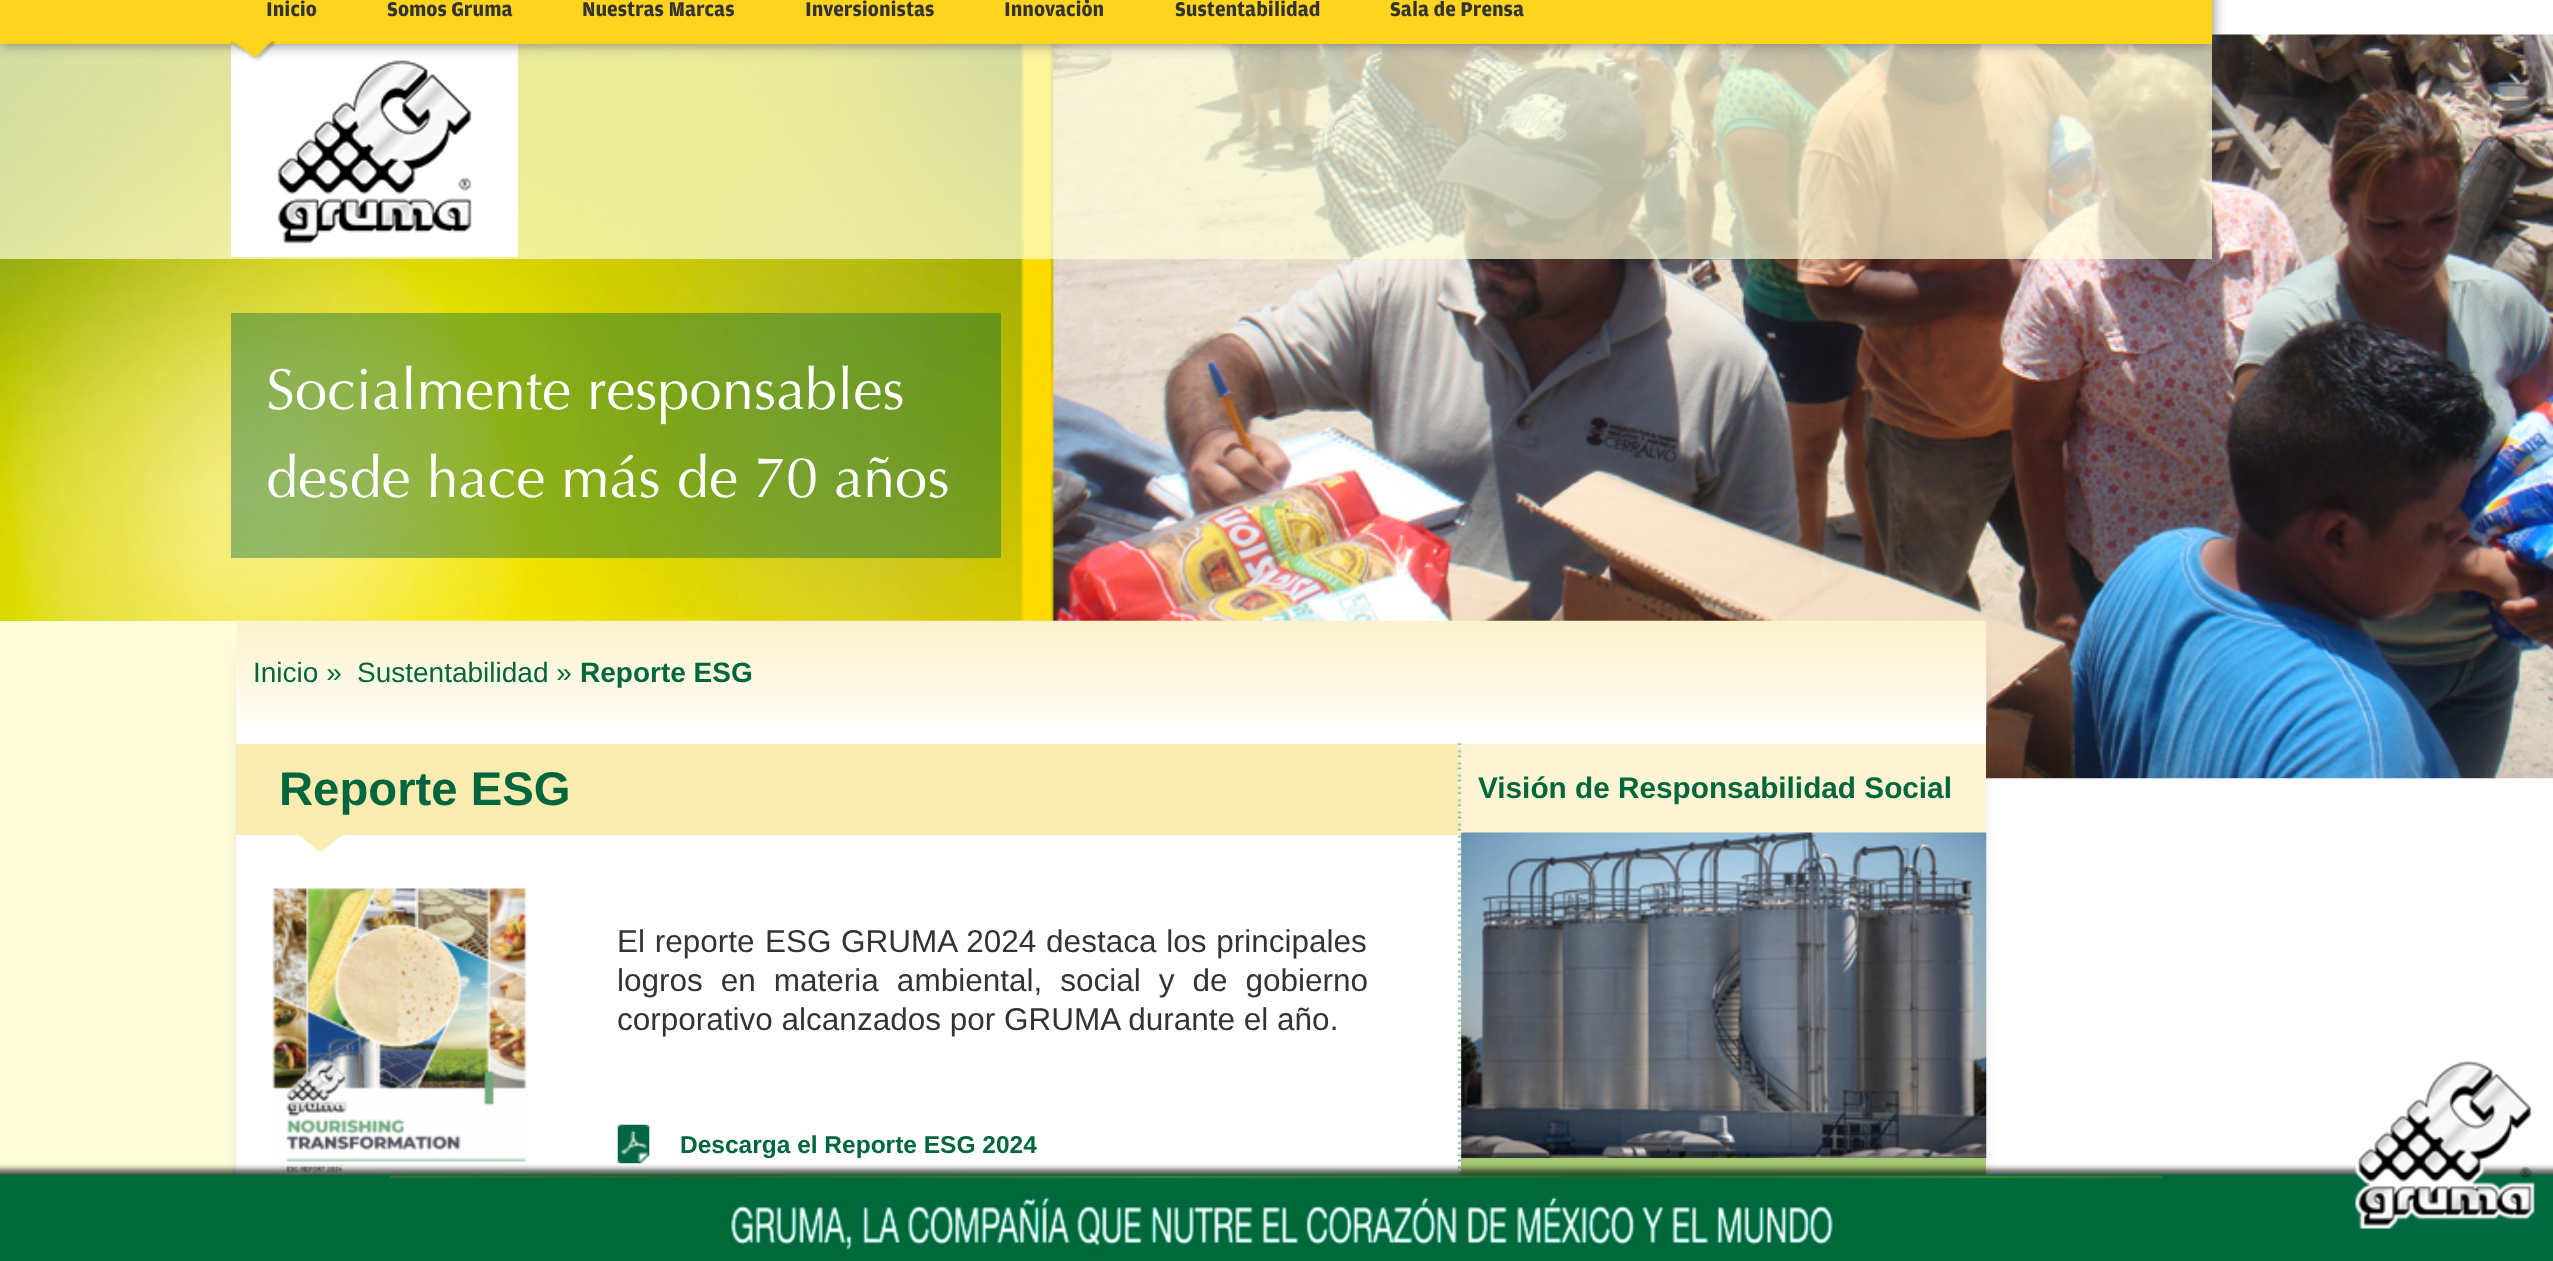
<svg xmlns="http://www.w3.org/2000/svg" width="2553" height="1261">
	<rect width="100%" height="100%" fill="#FFFFFF" />
	<image x="0" y="34" width="2553" height="745" href="assets/img3.png" />
	<rect x="0" y="44" width="2212" height="215" fill="#FDFDDA" fill-opacity="0.7" />
	<rect x="231" y="44" width="287" height="213" fill="#FFFFFF" />
	<image x="277" y="60" width="195" height="184" href="assets/img2.png" />
	<rect x="0" y="-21" width="2212" height="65" fill="#777777" filter="blur(7px)" />
	<rect x="0" y="0" width="2212" height="44" fill="#FFD41E" />
	<g font-family="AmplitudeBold" font-size="21" font-weight="700" fill="#333333">
		<text x="266" y="16">Inicio</text>
		<text x="387" y="16">Somos Gruma</text>
		<text x="582" y="16">Nuestras Marcas</text>
		<text x="805" y="16">Inversionistas</text>
		<text x="1004" y="16">Innovación</text>
		<text x="1175" y="16">Sustentabilidad</text>
		<text x="1390" y="16">Sala de Prensa</text>
	</g>
	<image x="231" y="41" width="44" height="20" href="assets/img1.png" />
	<rect x="231" y="313" width="770" height="245" fill="#00663E" fill-opacity="0.4" />
	<g font-family="Optima" font-size="57.75" fill="#FFFFFF">
		<text x="266" y="409">Socialmente responsables</text>
		<text x="266" y="497">desde hace más de 70 años</text>
	</g>
	<rect x="0" y="621" width="236" height="555" fill="#FDFDDA" />
	<rect x="249" y="651" width="1725" height="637" fill="#666666" filter="blur(9px)" />
	<rect x="236" y="621" width="1750" height="555" fill="#FFFFFF" />
	<image x="236" y="620" width="1751" height="106" href="assets/img4.png" />
	<g font-family="Liberation Sans" font-size="28" fill="#00663E">
		<text x="253" y="682">Inicio »</text>
		<text x="357" y="682">Sustentabilidad »</text>
	</g>
	<text x="580" y="682" font-family="Liberation Sans" font-size="28" font-weight="700" fill="#00663E">Reporte ESG</text>
	<image x="1457" y="743" width="5" height="433" href="assets/img5.png" />
	<image x="297" y="835" width="46" height="17" href="assets/img6.png" />
	<rect x="236" y="744" width="1225" height="91" fill="#FAECB0" />
	<rect x="1461" y="833" width="525" height="343" fill="#A5C870" />
	<rect x="1461" y="744" width="525" height="89" fill="#FDF4D3" />
	<image x="1461" y="832" width="526" height="326" href="assets/img10.png" />
	<image x="1457" y="743" width="5" height="92" href="assets/img7.png" />
	<text x="279" y="805" font-family="Liberation Sans" font-size="47.25" font-weight="700" fill="#00663E">Reporte ESG</text>
	<image x="272" y="888" width="256" height="285" href="assets/img8.png" />
	<g font-family="Liberation Sans" font-size="31.5" fill="#333333">
		<text x="617" y="952" word-spacing="1">El reporte</text>
		<text x="765" y="952">ESG</text>
		<text x="841" y="952" word-spacing="1">GRUMA 2024 destaca los principales</text>
		<text x="617" y="991" word-spacing="9.25">logros en materia ambiental, social y de gobierno</text>
		<text x="617" y="1030">corporativo alcanzados por GRUMA durante el año.</text>
	</g>
	<image x="617" y="1124" width="33" height="40" href="assets/img9.png" />
	<text x="680" y="1153" font-family="Liberation Sans" font-size="24.5" font-weight="700" fill="#00663E">Descarga el Reporte ESG 2024</text>
	<text x="1478" y="798" font-family="Liberation Sans" font-size="29.75" font-weight="700" fill="#00663E">Visión de Responsabilidad Social</text>
	<image x="0" y="1164" width="2553" height="97" href="assets/img12.png" />
	<image x="2323" y="1060" width="230" height="201" href="assets/img11.png" />
	<image x="390" y="1175" width="1773" height="76" href="assets/img13.png" />
</svg>
